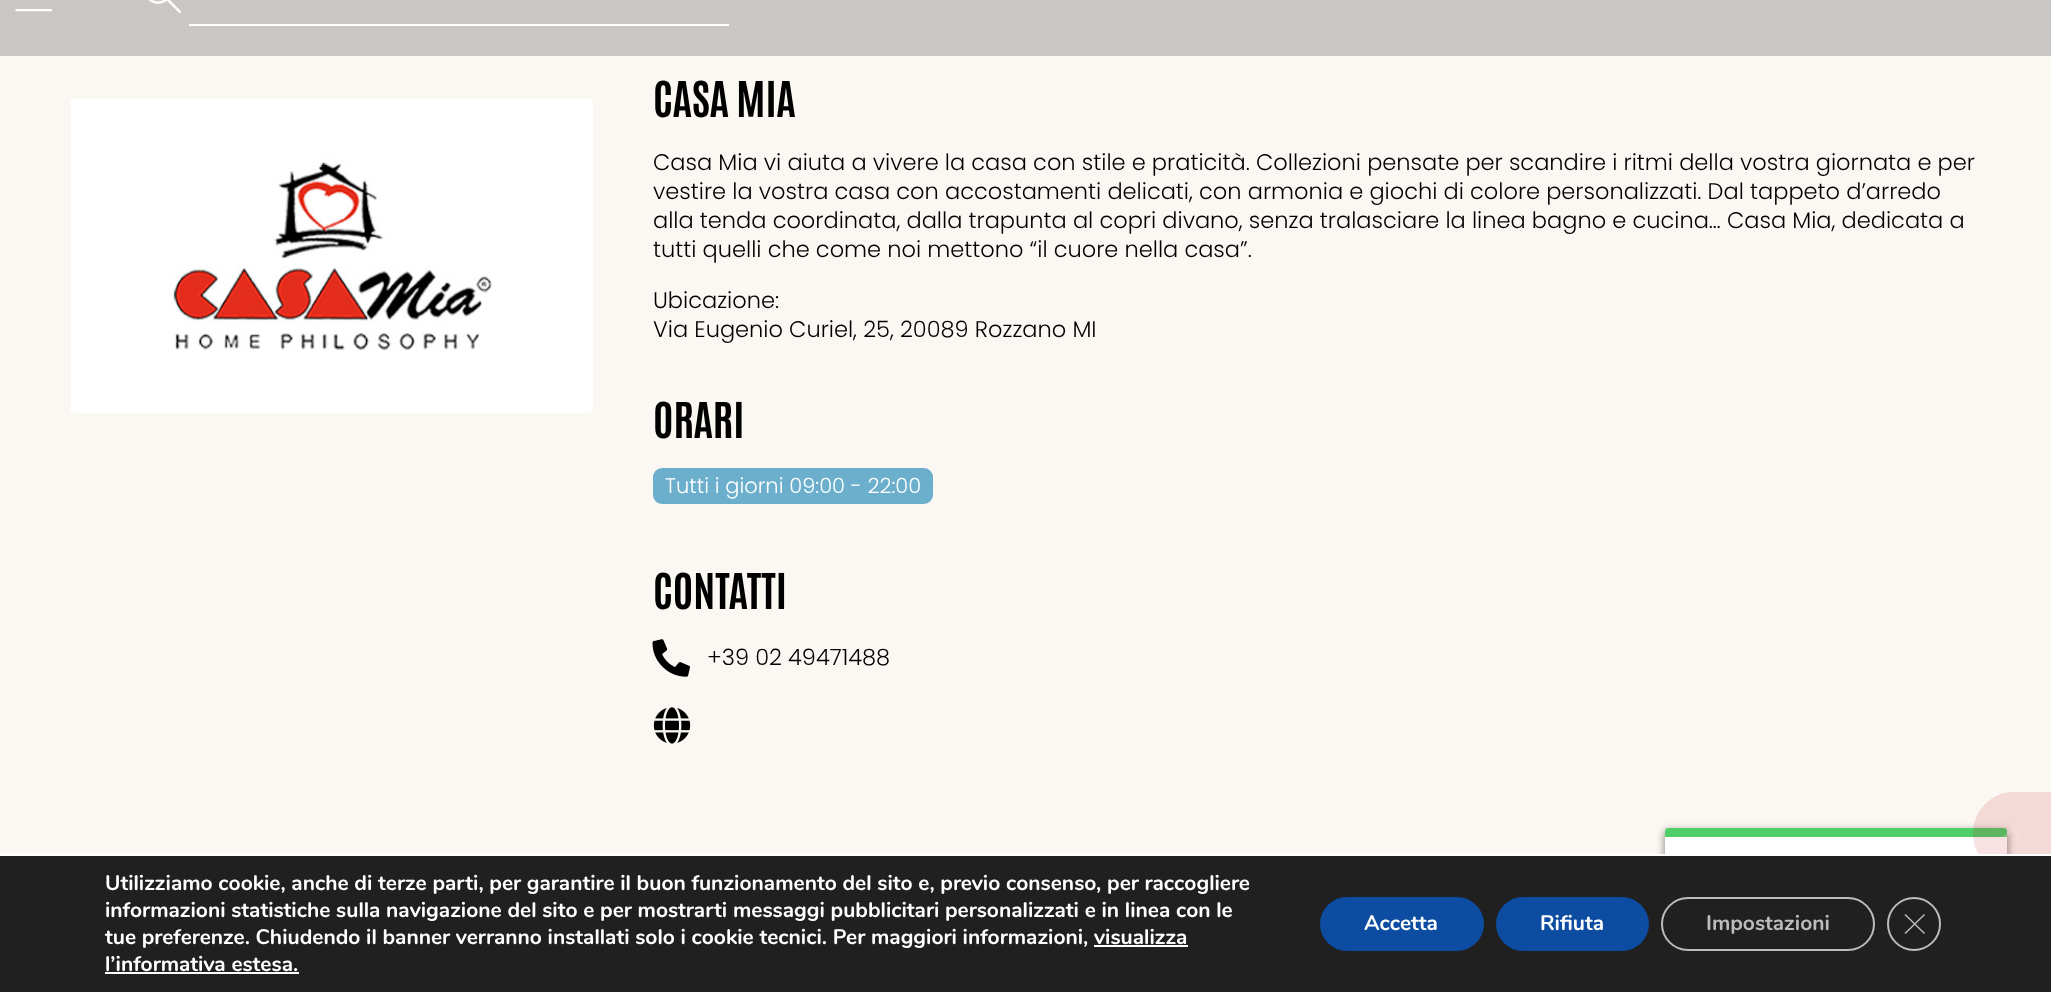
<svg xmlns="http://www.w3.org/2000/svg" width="2051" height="992">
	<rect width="100%" height="100%" fill="#FBF7F3" />
	<rect x="0" y="0" width="2051" height="56" fill="#C9C6C3" />
	<image x="15" y="9" width="38" height="3" href="assets/img1.png" />
	<image x="148" y="0" width="33" height="13" href="assets/img2.png" />
	<rect x="189" y="24" width="540" height="2" fill="#FFFFFF" />
	<rect x="1665" y="831" width="342" height="120" rx="3" fill="#000000" fill-opacity="0.26" filter="blur(4px)" />
	<rect x="1665" y="831" width="342" height="120" rx="3" fill="#000000" fill-opacity="0.26" filter="blur(4px)" />
	<path d="M1668 828H2004C2005.5 828 2007 829.5 2007 831V837H1665V831C1665 829.5 1666.5 828 1668 828Z" fill="#4FCE6A" />
	<rect x="1665" y="837" width="342" height="17" fill="#FFFFFF" />
	<path d="M2014 792H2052V875H2014C1991.5 875 1973 856.5 1973 834V833C1973 810.5 1991.5 792 2014 792Z" fill="#C20C0D" fill-opacity="0.12" />
	<image x="2003" y="828" width="19" height="10" href="assets/img3.png" />
	<rect x="71" y="99" width="522" height="314" rx="9" fill="#FFFFFF" />
	<image x="70" y="99" width="523" height="314" href="assets/img4.png" />
	<text x="653" y="117" font-family="Antonio" font-size="42" font-weight="700" fill="#000000">CASA MIA</text>
	<g font-family="Poppins" font-size="22.5" font-weight="300" fill="#000000">
		<text x="653" y="170">Casa Mia vi aiuta a vivere la casa con stile e praticità. Collezioni pensate per scandire i ritmi della vostra giornata e per</text>
		<text x="653" y="199">vestire la vostra casa con accostamenti delicati, con armonia e giochi di colore personalizzati. Dal tappeto d’arredo</text>
		<text x="653" y="228">alla tenda coordinata, dalla trapunta al copri divano, senza tralasciare la linea bagno e cucina… Casa Mia, dedicata a</text>
		<text x="653" y="257">tutti quelli che come noi mettono “il cuore nella casa”.</text>
		<text x="653" y="308">Ubicazione:</text>
		<text x="653" y="337">Via Eugenio Curiel, 25, 20089 Rozzano MI</text>
	</g>
	<text x="653" y="438" font-family="Antonio" font-size="42" font-weight="700" fill="#000000">ORARI</text>
	<rect x="653" y="468" width="280" height="36" rx="9" fill="#6CAFCD" />
	<text x="665" y="493" font-family="Poppins" font-size="21" font-weight="300" fill="#FFFFFF">Tutti i giorni 09:00 - 22:00</text>
	<text x="653" y="609" font-family="Antonio" font-size="42" font-weight="700" fill="#000000">CONTATTI</text>
	<image x="652" y="639" width="38" height="38" href="assets/img5.png" />
	<text x="707" y="665" font-family="Poppins" font-size="22.5" font-weight="300" fill="#000000">+39 02 49471488</text>
	<image x="653" y="707" width="38" height="37" href="assets/img6.png" />
	<rect x="0" y="856" width="2051" height="136" fill="#202020" />
	<rect x="0" y="854" width="2051" height="2" fill="#FFFFFF" />
	<g font-family="Nunito" font-size="21" font-weight="700" fill="#FFFFFF">
		<text x="105" y="890">Utilizziamo cookie, anche di terze parti, per garantire il buon funzionamento del sito e, previo consenso, per raccogliere</text>
		<text x="105" y="917">informazioni statistiche sulla navigazione del sito e per mostrarti messaggi pubblicitari personalizzati e in linea con le</text>
		<text x="105" y="944">tue preferenze. Chiudendo il banner verranno installati solo i cookie tecnici. Per maggiori informazioni, visualizza</text>
		<text x="105" y="971">l’informativa estesa.</text>
	</g>
	<rect x="1094" y="945" width="94" height="2" fill="#FFFFFF" />
	<rect x="105" y="972" width="194" height="2" fill="#FFFFFF" />
	<rect x="1320" y="897" width="164" height="54" rx="27" fill="#0C4DA2" />
	<text x="1364" y="930" font-family="Nunito" font-size="21" font-weight="700" fill="#FFFFFF">Accetta</text>
	<rect x="1496" y="897" width="153" height="54" rx="27" fill="#0C4DA2" />
	<text x="1540" y="930" font-family="Nunito" font-size="21" font-weight="700" fill="#FFFFFF">Rifiuta</text>
	<rect x="1662" y="898" width="212" height="52" rx="26" fill="none" stroke="#BCBCBC" stroke-width="2" />
	<text x="1706" y="930" font-family="Nunito" font-size="21" font-weight="700" fill="#BCBCBC">Impostazioni</text>
	<circle cx="1914" cy="924" r="26" fill="none" stroke="#BCBCBC" stroke-width="2" />
	<path d="M1924 914L1925 915L1905.5 934L1904.5 933Z" fill="#BCBCBC" />
	<path d="M1904.5 915L1905.5 914L1925 933L1924 934Z" fill="#BCBCBC" />
</svg>
